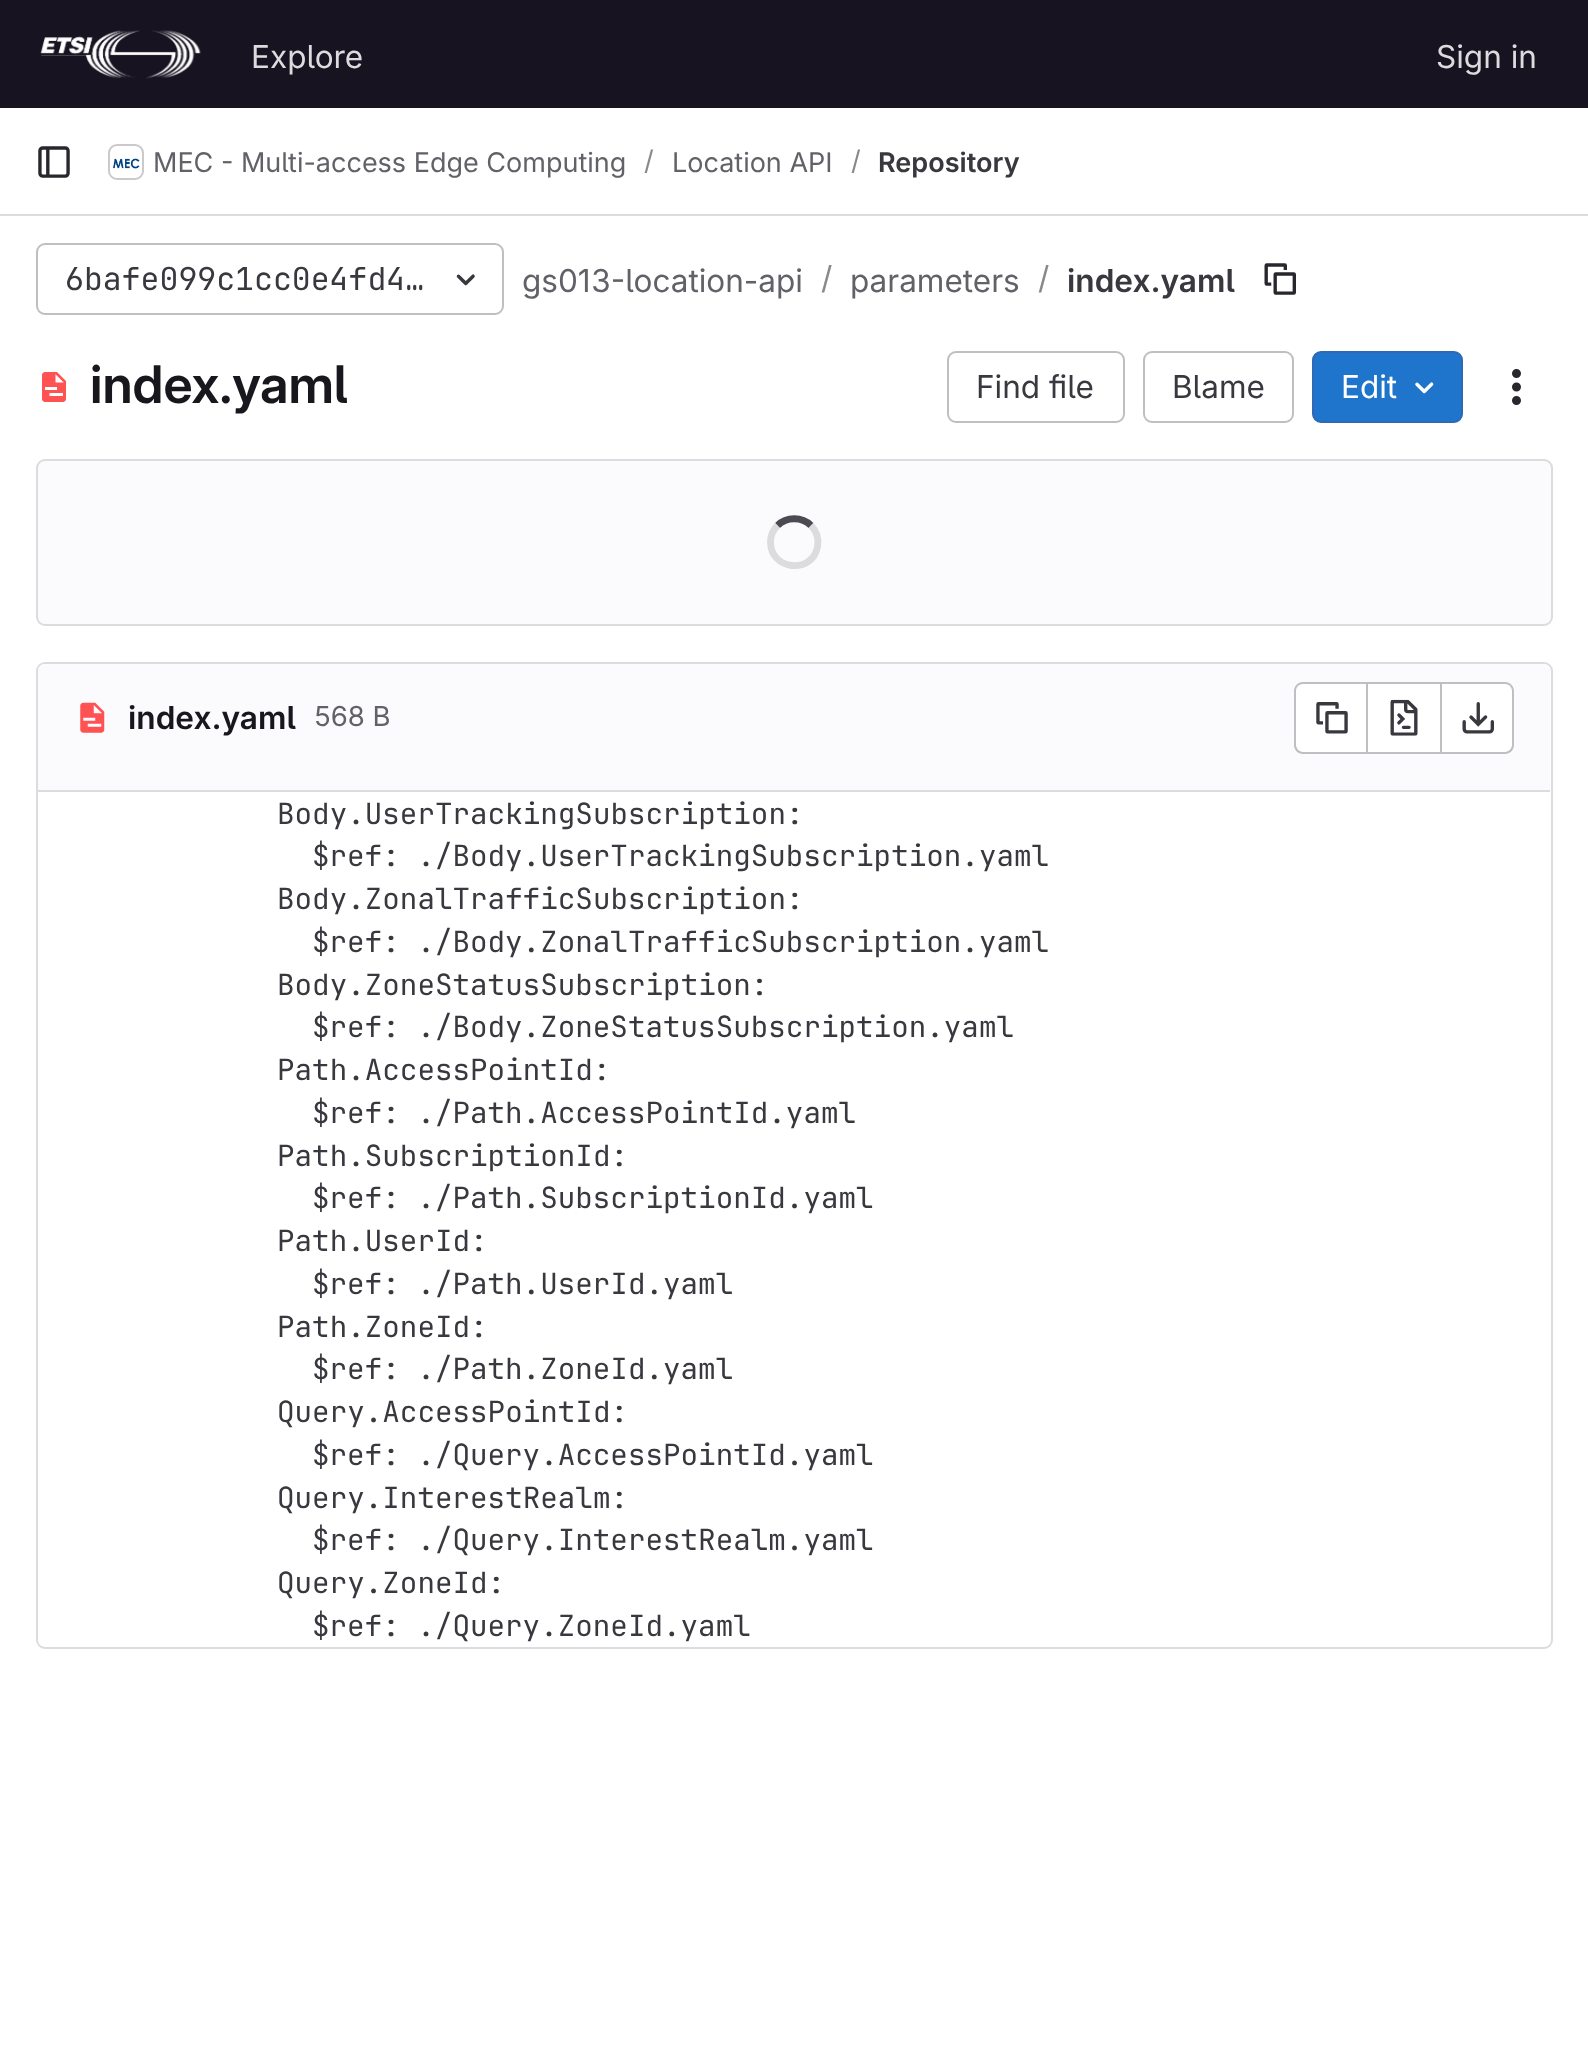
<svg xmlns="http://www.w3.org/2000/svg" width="1588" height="2052">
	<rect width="100%" height="100%" fill="#FFFFFF" />
	<rect x="0" y="0" width="1588" height="108" fill="#171321" />
	<image x="40" y="30" width="161" height="49" href="assets/img1.png" />
	<g font-family="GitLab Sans" font-size="31.5" fill="#DCDCDE">
		<text x="251" y="68">Explore</text>
		<text x="1436" y="68">Sign in</text>
	</g>
	<rect x="0" y="214" width="1588" height="2" fill="#DCDCDE" />
	<image x="38" y="146" width="32" height="32" href="assets/img2.png" />
	<rect x="109" y="145" width="34" height="34" rx="8" fill="none" stroke="#DCDCDE" stroke-width="2" />
	<image x="112" y="158" width="28" height="11" href="assets/img3.png" />
	<rect x="109" y="145" width="34" height="34" rx="8" fill="none" stroke="#050506" stroke-opacity="0.08" stroke-width="2" />
	<text x="153" y="172" font-family="GitLab Sans" font-size="27" fill="#626168">MEC - Multi-access Edge Computing</text>
	<text x="644" y="170" font-family="GitLab Sans" font-size="27" fill="#89888D">/</text>
	<text x="672" y="172" font-family="GitLab Sans" font-size="27" fill="#626168">Location API</text>
	<text x="851" y="170" font-family="GitLab Sans" font-size="27" fill="#89888D">/</text>
	<text x="878" y="172" font-family="GitLab Sans" font-size="27" font-weight="600" fill="#3A383F">Repository</text>
	<rect x="37" y="244" width="466" height="70" rx="8" fill="none" stroke="#BFBFC3" stroke-width="2" />
	<text x="65" y="290" font-family="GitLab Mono" font-size="31.5" fill="#3A383F">6bafe099c1cc0e4fd4…</text>
	<image x="456" y="274" width="19" height="12" href="assets/img4.png" />
	<text x="522" y="292" font-family="GitLab Sans" font-size="31.5" fill="#626168">gs013-location-api</text>
	<text x="821" y="289" font-family="GitLab Sans" font-size="31.5" fill="#89888D">/</text>
	<text x="850" y="292" font-family="GitLab Sans" font-size="31.5" fill="#626168">parameters</text>
	<text x="1038" y="289" font-family="GitLab Sans" font-size="31.5" fill="#89888D">/</text>
	<text x="1067" y="292" font-family="GitLab Sans" font-size="31.5" font-weight="600" fill="#3A383F">index.yaml</text>
	<image x="1264" y="263" width="32" height="32" href="assets/img5.png" />
	<image x="42" y="372" width="24" height="30" href="assets/img6.png" />
	<text x="90" y="403" font-family="'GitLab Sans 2'" font-size="51.75" font-weight="600" fill="#18171D">index.yaml</text>
	<rect x="948" y="352" width="176" height="70" rx="8" fill="none" stroke="#BFBFC3" stroke-width="2" />
	<text x="976" y="398" font-family="GitLab Sans" font-size="31.5" fill="#3A383F">Find file</text>
	<rect x="1144" y="352" width="149" height="70" rx="8" fill="none" stroke="#BFBFC3" stroke-width="2" />
	<text x="1172" y="398" font-family="GitLab Sans" font-size="31.5" fill="#3A383F">Blame</text>
	<rect x="1313" y="352" width="149" height="70" rx="8" fill="#1F75CB" stroke="#2F68B4" stroke-width="2" />
	<text x="1341" y="398" font-family="GitLab Sans" font-size="31.5" fill="#FFFFFF">Edit</text>
	<image x="1415" y="382" width="19" height="12" href="assets/img7.png" />
	<image x="1512" y="369" width="9" height="36" href="assets/img8.png" />
	<rect x="37" y="460" width="1515" height="165" rx="8" fill="#FBFAFD" stroke="#DCDCDE" stroke-width="2" />
	<path d="M777.5 525.5C786.5 516.5 802 516.5 811 525.5" fill="none" stroke="#4C4B51" stroke-width="6.8" />
	<path d="M811 525.5C816.5 531 819 539 817.5 547C812 574.5 770.5 570.5 770.5 542C770.5 536 773 530 777.5 525.5" fill="none" stroke="#DCDCDE" stroke-width="6.8" />
	<rect x="37" y="663" width="1515" height="985" rx="8" fill="none" stroke="#DCDCDE" stroke-width="2" />
	<path d="M45 664H1543C1547 664 1550 667 1550 671V792H38V671C38 667 41 664 45 664Z" fill="#FBFAFD" />
	<rect x="38" y="790" width="1512" height="2" fill="#DCDCDE" />
	<image x="80" y="702" width="25" height="31" href="assets/img9.png" />
	<text x="128" y="729" font-family="GitLab Sans" font-size="31.5" font-weight="600" fill="#18171D">index.yaml</text>
	<text x="314" y="726" font-family="GitLab Sans" font-size="27.5" fill="#626168">568 B</text>
	<path d="M1303 684H1366V752H1303C1299 752 1296 749 1296 745V691C1296 687 1299 684 1303 684Z" fill="#FFFFFF" />
	<path d="M1303 682H1366V754H1303C1298 754 1294 750 1294 745V691C1294 686 1298 682 1303 682ZM1303 684H1366V752H1303C1299 752 1296 748 1296 745V691C1296 687 1299 684 1303 684Z" fill="#BFBFC3" fill-rule="evenodd" />
	<image x="1316" y="702" width="32" height="32" href="assets/img10.png" />
	<rect x="1368" y="684" width="72" height="68" fill="#FFFFFF" />
	<rect x="1368" y="682" width="72" height="2" fill="#BFBFC3" />
	<rect x="1368" y="752" width="72" height="2" fill="#BFBFC3" />
	<rect x="1366" y="682" width="2" height="72" fill="#BFBFC3" />
	<image x="1390" y="699" width="28" height="37" href="assets/img11.png" />
	<path d="M1442 684H1505C1509 684 1512 687 1512 691V745C1512 749 1509 752 1505 752H1442Z" fill="#FFFFFF" />
	<path d="M1442 682H1505C1510 682 1514 686 1514 691V745C1514 750 1510 754 1505 754H1442ZM1442 684H1505C1509 684 1512 687 1512 691V745C1512 748 1509 752 1505 752H1442Z" fill="#BFBFC3" fill-rule="evenodd" />
	<rect x="1440" y="682" width="2" height="72" fill="#BFBFC3" />
	<image x="1462" y="702" width="32" height="32" href="assets/img12.png" />
	<g font-family="GitLab Mono" font-size="29.25" fill="#3A383F">
		<text x="277" y="824">Body.UserTrackingSubscription:</text>
		<text x="312" y="866">$ref: ./Body.UserTrackingSubscription.yaml</text>
		<text x="277" y="909">Body.ZonalTrafficSubscription:</text>
		<text x="312" y="952">$ref: ./Body.ZonalTrafficSubscription.yaml</text>
		<text x="277" y="995">Body.ZoneStatusSubscription:</text>
		<text x="312" y="1037">$ref: ./Body.ZoneStatusSubscription.yaml</text>
		<text x="277" y="1080">Path.AccessPointId:</text>
		<text x="312" y="1123">$ref: ./Path.AccessPointId.yaml</text>
		<text x="277" y="1166">Path.SubscriptionId:</text>
		<text x="312" y="1208">$ref: ./Path.SubscriptionId.yaml</text>
		<text x="277" y="1251">Path.UserId:</text>
		<text x="312" y="1294">$ref: ./Path.UserId.yaml</text>
		<text x="277" y="1337">Path.ZoneId:</text>
		<text x="312" y="1379">$ref: ./Path.ZoneId.yaml</text>
		<text x="277" y="1422">Query.AccessPointId:</text>
		<text x="312" y="1465">$ref: ./Query.AccessPointId.yaml</text>
		<text x="277" y="1508">Query.InterestRealm:</text>
		<text x="312" y="1550">$ref: ./Query.InterestRealm.yaml</text>
		<text x="277" y="1593">Query.ZoneId:</text>
		<text x="312" y="1636">$ref: ./Query.ZoneId.yaml</text>
	</g>
</svg>
